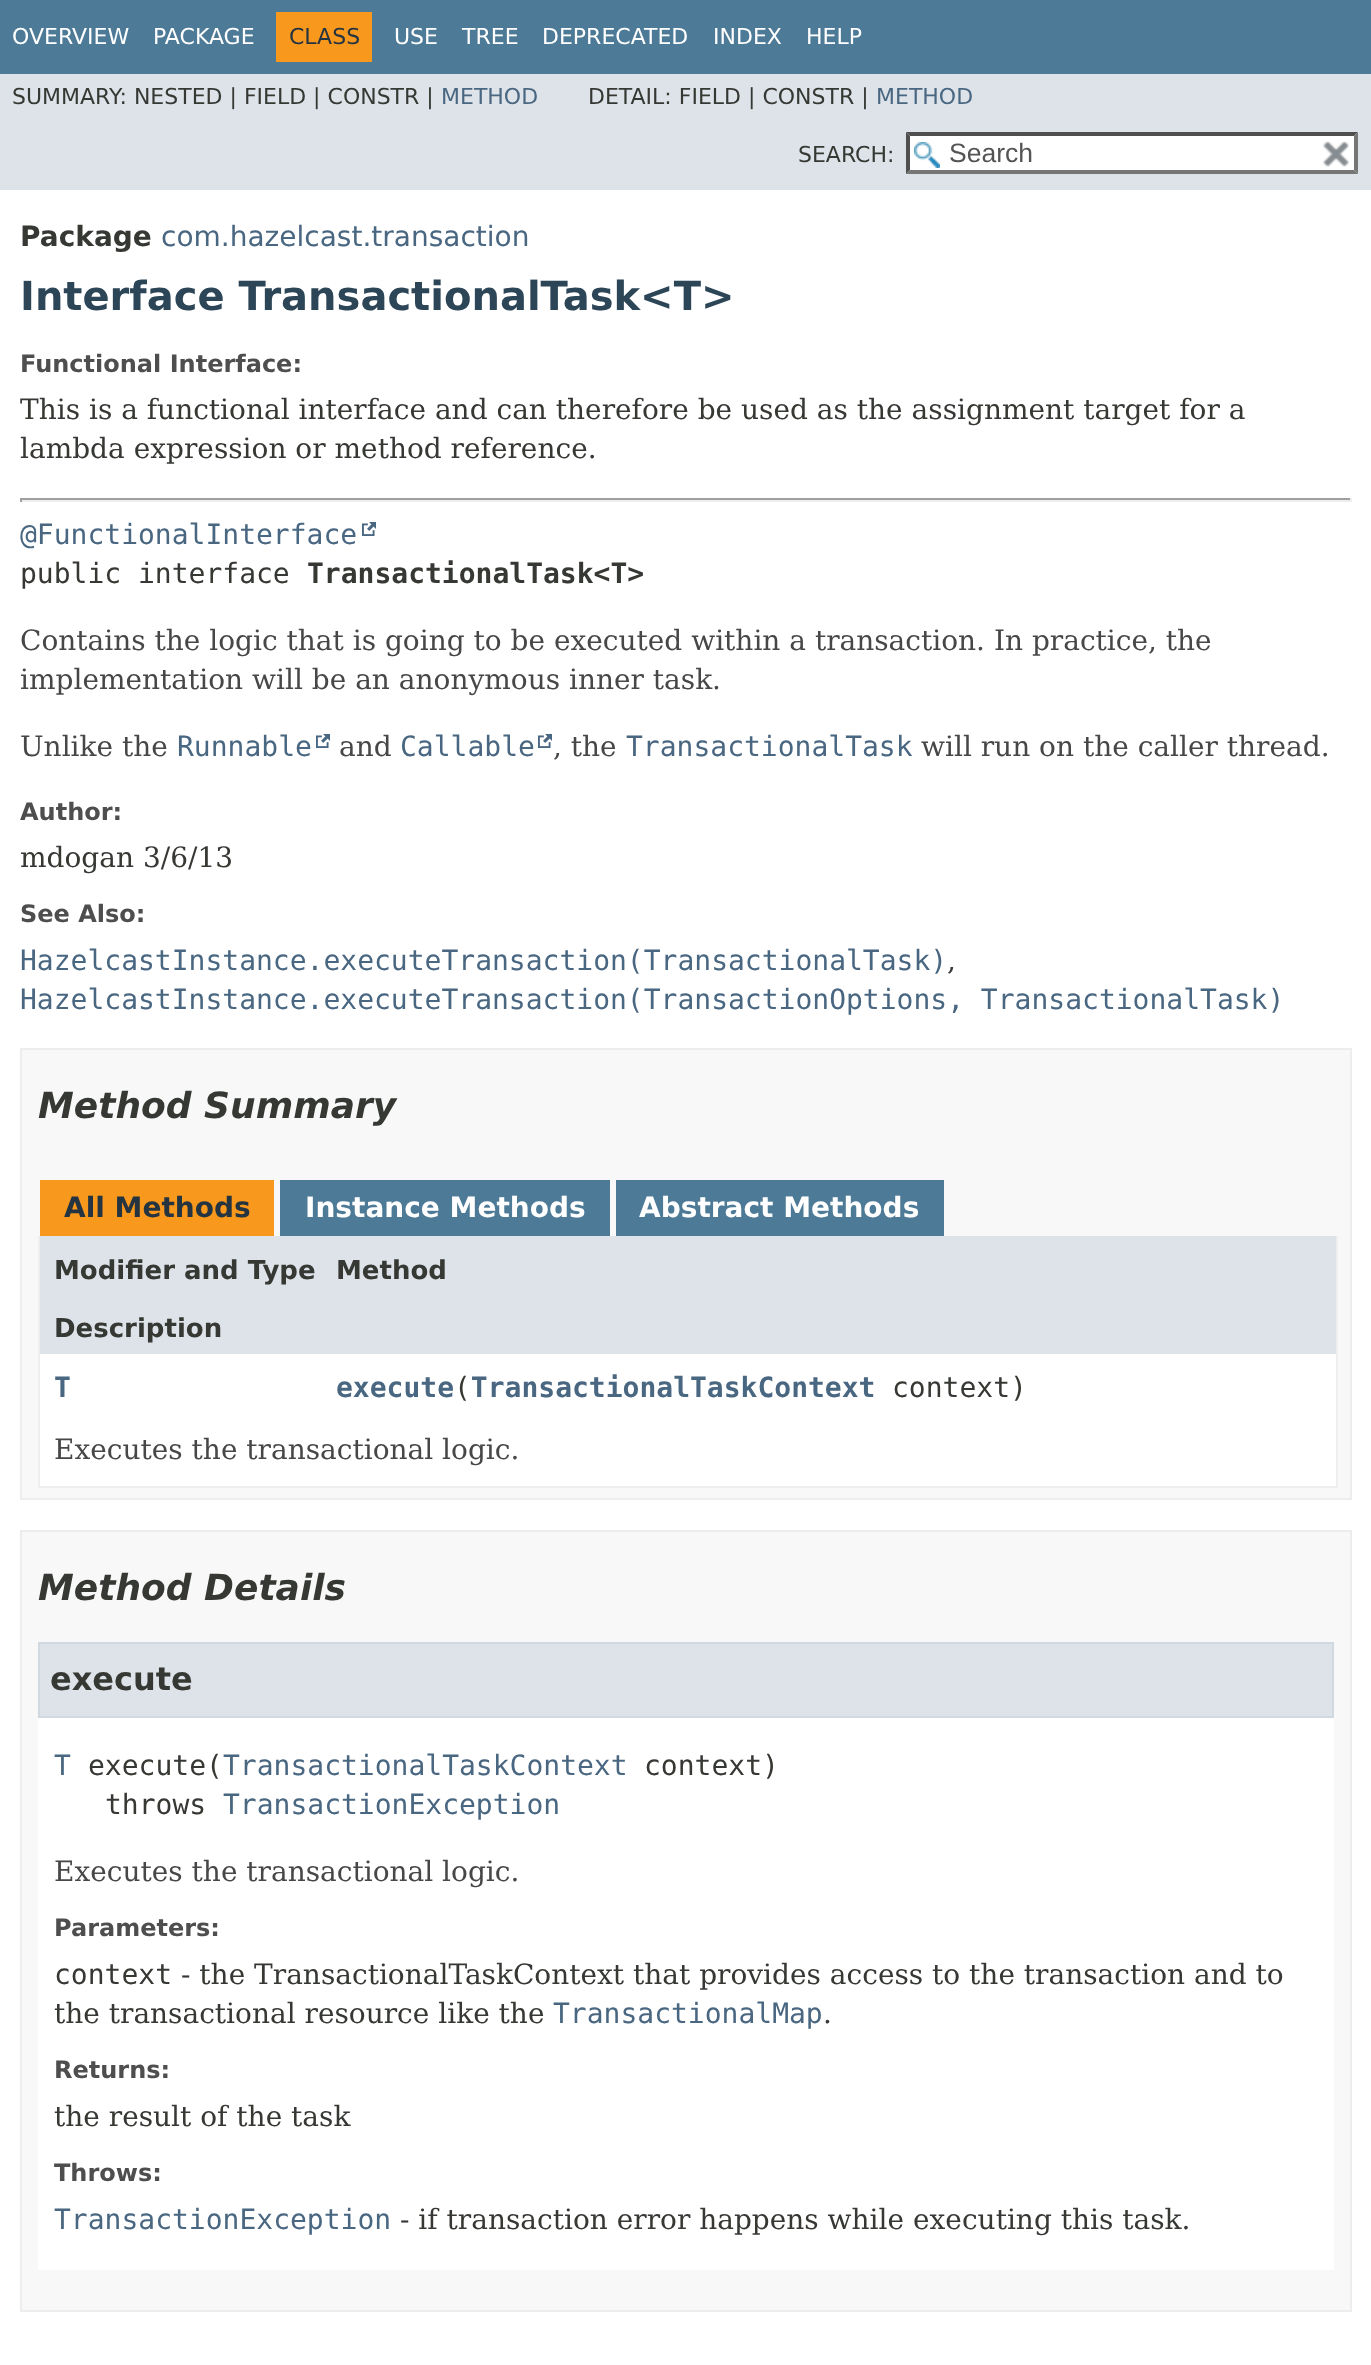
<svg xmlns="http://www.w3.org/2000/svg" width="1371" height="2365">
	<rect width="100%" height="100%" fill="#FFFFFF" />
	<rect x="0" y="0" width="1371" height="74" fill="#4D7A97" />
	<g font-family="DejaVu Sans" font-size="22" fill="#FFFFFF">
		<text x="12" y="44">OVERVIEW</text>
		<text x="153" y="44">PACKAGE</text>
	</g>
	<rect x="276" y="12" width="96" height="50" fill="#F8981D" />
	<text x="289" y="44" font-family="DejaVu Sans" font-size="22" fill="#253441">CLASS</text>
	<g font-family="DejaVu Sans" font-size="22" fill="#FFFFFF">
		<text x="394" y="44">USE</text>
		<text x="462" y="44">TREE</text>
		<text x="542" y="44">DEPRECATED</text>
		<text x="713" y="44">INDEX</text>
		<text x="806" y="44">HELP</text>
	</g>
	<rect x="0" y="74" width="1371" height="116" fill="#DEE3E9" />
	<text x="12" y="104" font-family="DejaVu Sans" font-size="22" fill="#353833">SUMMARY: NESTED | FIELD | CONSTR |</text>
	<text x="441" y="104" font-family="DejaVu Sans" font-size="22" fill="#4A6782">METHOD</text>
	<text x="588" y="104" font-family="DejaVu Sans" font-size="22" fill="#353833">DETAIL: FIELD | CONSTR |</text>
	<text x="876" y="104" font-family="DejaVu Sans" font-size="22" fill="#4A6782">METHOD</text>
	<text x="798" y="162" font-family="DejaVu Sans" font-size="22" fill="#353833">SEARCH:</text>
	<rect x="906" y="132" width="452" height="42" fill="#FFFFFF" />
	<image x="914" y="142" width="26" height="26" href="assets/img1.png" />
	<path d="M906 132H1358L1354 136H910Z" fill="#4F4F4F" />
	<path d="M1358 132V174L1354 170V136Z" fill="#767676" />
	<path d="M1358 174H906L910 170H1354Z" fill="#767676" />
	<path d="M906 174V132L910 136V170Z" fill="#4F4F4F" />
	<text x="949" y="162" font-family="Liberation Sans" font-size="26.5" fill="#545454">Search</text>
	<image x="1322" y="141" width="27" height="26" href="assets/img2.png" />
	<text x="20" y="246" font-family="DejaVu Sans" font-size="28" font-weight="700" fill="#353833">Package</text>
	<text x="161" y="246" font-family="DejaVu Sans" font-size="28" fill="#4A6782">com.hazelcast.transaction</text>
	<text x="20" y="310" font-family="DejaVu Sans" font-size="40" font-weight="700" fill="#2C4557">Interface TransactionalTask&lt;T&gt;</text>
	<text x="20" y="372" font-family="DejaVu Sans" font-size="24" font-weight="700" fill="#4E4E4E">Functional Interface:</text>
	<g font-family="DejaVu Serif" font-size="28" fill="#353833">
		<text x="20" y="419">This is a functional interface and can therefore be used as the assignment target for a</text>
		<text x="20" y="458">lambda expression or method reference.</text>
	</g>
	<rect x="20" y="498" width="1332" height="2" fill="#9F9F9F" />
	<rect x="1350" y="498" width="2" height="4" fill="#EEEEEE" />
	<rect x="20" y="500" width="1332" height="2" fill="#EEEEEE" />
	<rect x="20" y="498" width="2" height="4" fill="#9F9F9F" />
	<text x="20" y="544" font-family="DejaVu Sans Mono" font-size="28" fill="#4A6782">@FunctionalInterface</text>
	<image x="362" y="522" width="14" height="14" href="assets/img3.png" />
	<text x="20" y="583" font-family="DejaVu Sans Mono" font-size="28" fill="#353833">public interface</text>
	<text x="307" y="583" font-family="DejaVu Sans Mono" font-size="28" font-weight="700" fill="#353833">TransactionalTask&lt;T&gt;</text>
	<g font-family="DejaVu Serif" font-size="28" fill="#474747">
		<text x="20" y="650">Contains the logic that is going to be executed within a transaction. In practice, the</text>
		<text x="20" y="689">implementation will be an anonymous inner task.</text>
		<text x="20" y="756">Unlike the</text>
	</g>
	<text x="177" y="756" font-family="DejaVu Sans Mono" font-size="28" fill="#4A6782">Runnable</text>
	<image x="316" y="734" width="14" height="14" href="assets/img3.png" />
	<text x="339" y="756" font-family="DejaVu Serif" font-size="28" fill="#474747">and</text>
	<text x="400" y="756" font-family="DejaVu Sans Mono" font-size="28" fill="#4A6782">Callable</text>
	<image x="538" y="734" width="14" height="14" href="assets/img3.png" />
	<text x="553" y="756" font-family="DejaVu Serif" font-size="28" fill="#474747">, the</text>
	<text x="626" y="756" font-family="DejaVu Sans Mono" font-size="28" fill="#4A6782">TransactionalTask</text>
	<text x="921" y="756" font-family="DejaVu Serif" font-size="28" fill="#474747">will run on the caller thread.</text>
	<text x="20" y="820" font-family="DejaVu Sans" font-size="24" font-weight="700" fill="#4E4E4E">Author:</text>
	<text x="20" y="867" font-family="DejaVu Serif" font-size="28" fill="#353833">mdogan 3/6/13</text>
	<text x="20" y="922" font-family="DejaVu Sans" font-size="24" font-weight="700" fill="#4E4E4E">See Also:</text>
	<text x="20" y="970" font-family="DejaVu Sans Mono" font-size="28" fill="#4A6782">HazelcastInstance.executeTransaction(TransactionalTask)</text>
	<text x="947" y="970" font-family="DejaVu Serif" font-size="28" fill="#353833">,</text>
	<text x="20" y="1009" font-family="DejaVu Sans Mono" font-size="28" fill="#4A6782">HazelcastInstance.executeTransaction(TransactionOptions, TransactionalTask)</text>
	<rect x="21" y="1049" width="1330" height="450" fill="#F8F8F8" stroke="#EDEDED" stroke-width="2" />
	<text x="38" y="1118" font-family="DejaVu Sans" font-size="36" font-weight="700" font-style="italic" fill="#353833">Method Summary</text>
	<rect x="40" y="1180" width="234" height="56" fill="#F8981D" />
	<text x="64" y="1217" font-family="DejaVu Sans" font-size="28" font-weight="700" fill="#253441">All Methods</text>
	<rect x="280" y="1180" width="330" height="56" fill="#4D7A97" />
	<text x="305" y="1217" font-family="DejaVu Sans" font-size="28" font-weight="700" fill="#FFFFFF">Instance Methods</text>
	<rect x="616" y="1180" width="328" height="56" fill="#4D7A97" />
	<text x="639" y="1217" font-family="DejaVu Sans" font-size="28" font-weight="700" fill="#FFFFFF">Abstract Methods</text>
	<rect x="1336" y="1236" width="2" height="252" fill="#EEEEEE" />
	<rect x="38" y="1486" width="1300" height="2" fill="#EEEEEE" />
	<rect x="38" y="1236" width="2" height="252" fill="#EEEEEE" />
	<rect x="40" y="1236" width="1296" height="60" fill="#DEE3E9" />
	<g font-family="DejaVu Sans" font-size="26" font-weight="700" fill="#353833">
		<text x="54" y="1279">Modifier and Type</text>
		<text x="336" y="1279">Method</text>
	</g>
	<rect x="40" y="1296" width="1296" height="58" fill="#DEE3E9" />
	<text x="54" y="1337" font-family="DejaVu Sans" font-size="26" font-weight="700" fill="#353833">Description</text>
	<rect x="40" y="1354" width="1296" height="60" fill="#FFFFFF" />
	<g font-family="DejaVu Sans Mono" font-size="28" font-weight="700" fill="#4A6782">
		<text x="54" y="1397">T</text>
		<text x="336" y="1397">execute TransactionalTaskContext</text>
	</g>
	<g font-family="DejaVu Sans Mono" font-size="28" fill="#353833">
		<text x="454" y="1397">(</text>
		<text x="892" y="1397">context)</text>
	</g>
	<rect x="40" y="1414" width="1296" height="72" fill="#FFFFFF" />
	<text x="54" y="1459" font-family="DejaVu Serif" font-size="28" fill="#474747">Executes the transactional logic.</text>
	<rect x="21" y="1531" width="1330" height="780" fill="#F8F8F8" stroke="#EDEDED" stroke-width="2" />
	<text x="38" y="1600" font-family="DejaVu Sans" font-size="36" font-weight="700" font-style="italic" fill="#353833">Method Details</text>
	<rect x="38" y="1718" width="1296" height="552" fill="#FFFFFF" />
	<rect x="39" y="1643" width="1294" height="74" fill="#DEE3E9" stroke="#D0D9E0" stroke-width="2" />
	<text x="50" y="1690" font-family="DejaVu Sans" font-size="32" font-weight="700" fill="#353833">execute</text>
	<text x="54" y="1775" font-family="DejaVu Sans Mono" font-size="28" fill="#4A6782">T</text>
	<text x="88" y="1775" font-family="DejaVu Sans Mono" font-size="28" fill="#353833">execute(</text>
	<text x="223" y="1775" font-family="DejaVu Sans Mono" font-size="28" fill="#4A6782">TransactionalTaskContext</text>
	<g font-family="DejaVu Sans Mono" font-size="28" fill="#353833">
		<text x="644" y="1775">context)</text>
		<text x="105" y="1814">throws</text>
	</g>
	<text x="223" y="1814" font-family="DejaVu Sans Mono" font-size="28" fill="#4A6782">TransactionException</text>
	<text x="54" y="1881" font-family="DejaVu Serif" font-size="28" fill="#474747">Executes the transactional logic.</text>
	<text x="54" y="1936" font-family="DejaVu Sans" font-size="24" font-weight="700" fill="#4E4E4E">Parameters:</text>
	<text x="54" y="1984" font-family="DejaVu Sans Mono" font-size="28" fill="#353833">context</text>
	<g font-family="DejaVu Serif" font-size="28" fill="#353833">
		<text x="181" y="1984">- the TransactionalTaskContext that provides access to the transaction and to</text>
		<text x="54" y="2023">the transactional resource like the</text>
	</g>
	<text x="553" y="2023" font-family="DejaVu Sans Mono" font-size="28" fill="#4A6782">TransactionalMap</text>
	<text x="823" y="2023" font-family="DejaVu Serif" font-size="28" fill="#353833">.</text>
	<text x="54" y="2078" font-family="DejaVu Sans" font-size="24" font-weight="700" fill="#4E4E4E">Returns:</text>
	<text x="54" y="2126" font-family="DejaVu Serif" font-size="28" fill="#353833">the result of the task</text>
	<text x="54" y="2181" font-family="DejaVu Sans" font-size="24" font-weight="700" fill="#4E4E4E">Throws:</text>
	<text x="54" y="2229" font-family="DejaVu Sans Mono" font-size="28" fill="#4A6782">TransactionException</text>
	<text x="400" y="2229" font-family="DejaVu Serif" font-size="28" fill="#353833">- if transaction error happens while executing this task.</text>
</svg>
